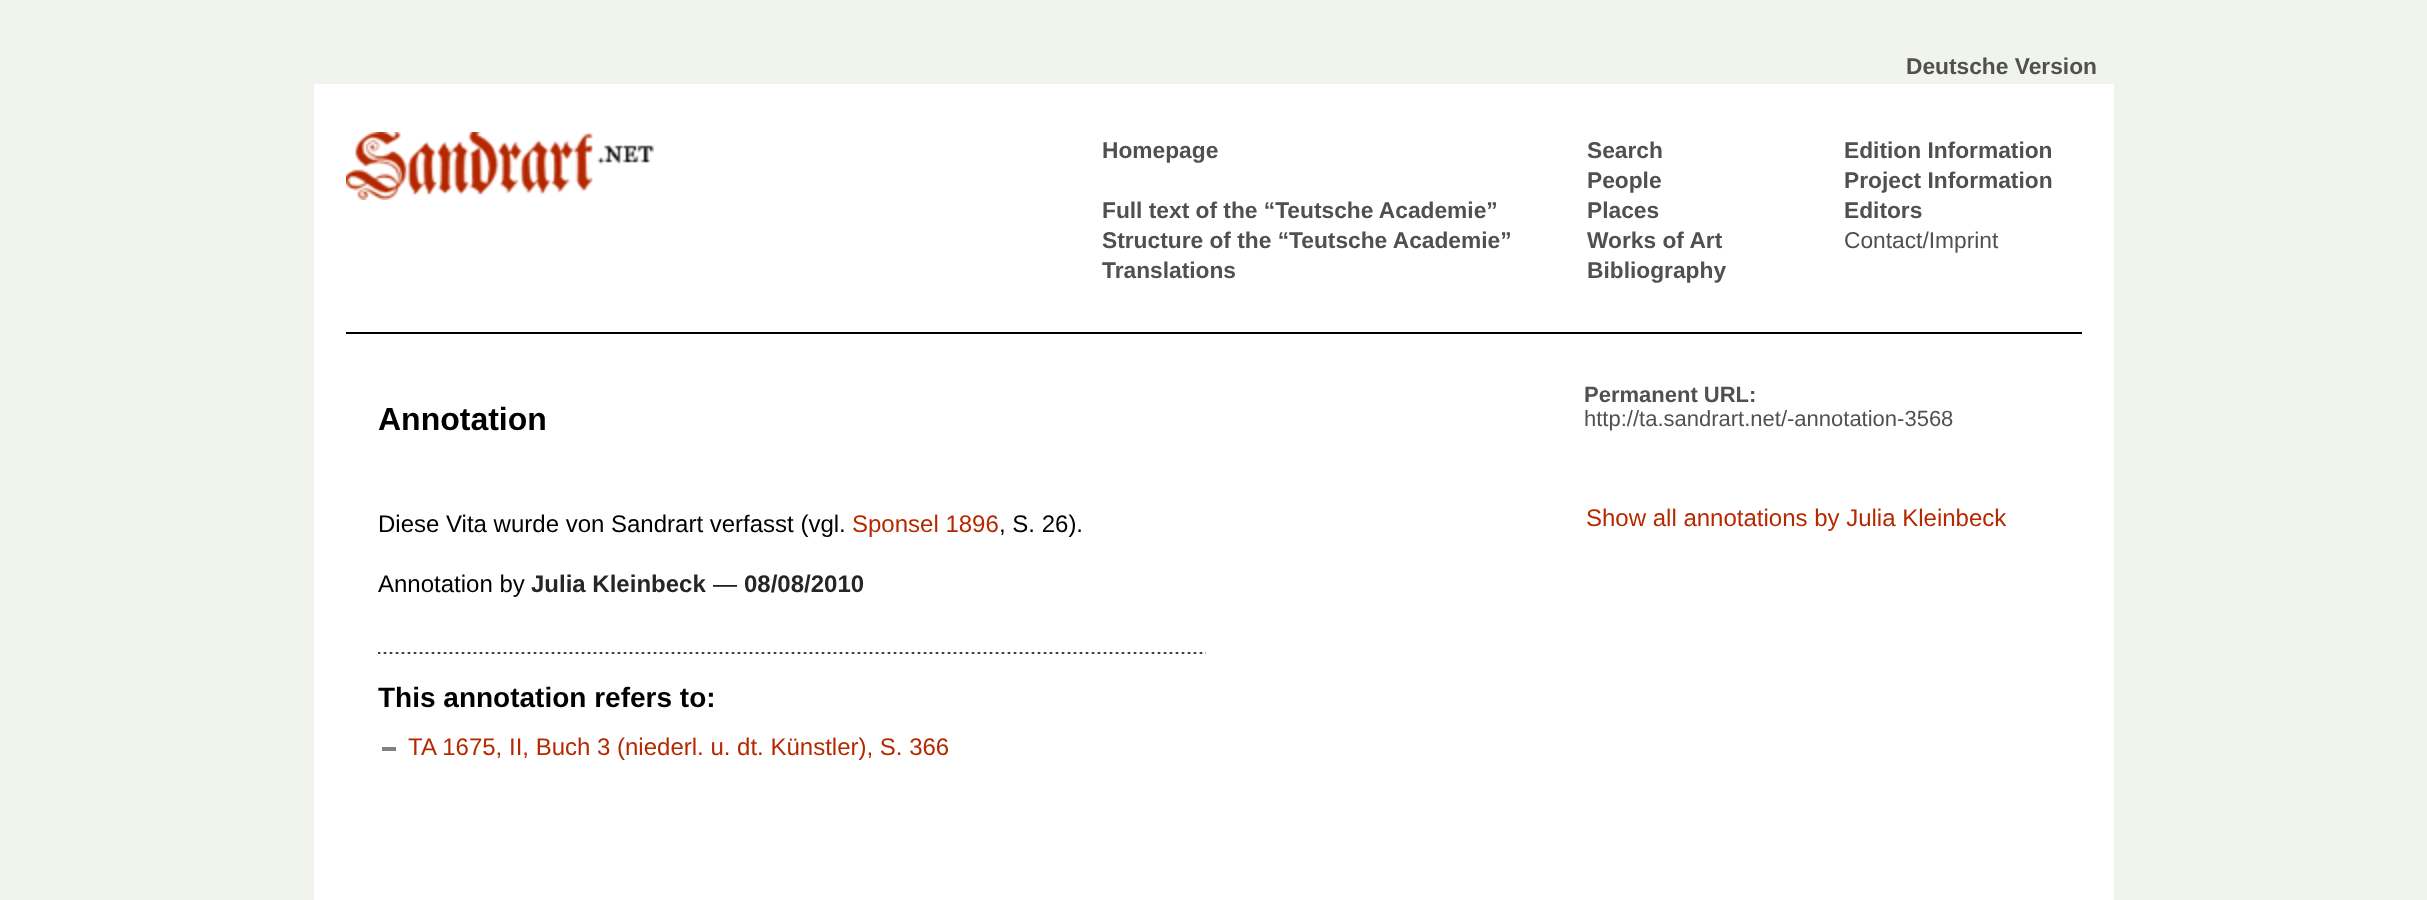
<svg xmlns="http://www.w3.org/2000/svg" width="2427" height="900">
	<rect width="100%" height="100%" fill="#F1F3ED" />
	<text x="1906" y="74" font-family="Liberation Sans" font-size="22.75" font-weight="700" fill="#505050">Deutsche Version</text>
	<rect x="314" y="84" width="1800" height="816" fill="#FFFFFF" />
	<rect x="346" y="332" width="1736" height="2" fill="#000000" />
	<image x="346" y="132" width="308" height="68" href="assets/img1.png" />
	<g font-family="Liberation Sans" font-size="22.75" font-weight="700" fill="#505050">
		<text x="1102" y="158">Homepage</text>
		<text x="1587" y="158">Search</text>
		<text x="1844" y="158">Edition Information</text>
		<text x="1587" y="188">People</text>
		<text x="1844" y="188">Project Information</text>
		<text x="1102" y="218">Full text of the “Teutsche Academie”</text>
		<text x="1587" y="218">Places</text>
		<text x="1844" y="218">Editors</text>
		<text x="1102" y="248">Structure of the “Teutsche Academie”</text>
		<text x="1587" y="248">Works of Art</text>
	</g>
	<text x="1844" y="248" font-family="Liberation Sans" font-size="22.75" fill="#505050">Contact/Imprint</text>
	<g font-family="Liberation Sans" font-size="22.75" font-weight="700" fill="#505050">
		<text x="1102" y="278">Translations</text>
		<text x="1587" y="278">Bibliography</text>
	</g>
	<text x="378" y="430" font-family="Liberation Sans" font-size="32" font-weight="700" fill="#000000">Annotation</text>
	<text x="1584" y="402" font-family="Liberation Sans" font-size="22" font-weight="700" fill="#505050">Permanent URL:</text>
	<text x="1584" y="426" font-family="Liberation Sans" font-size="22" fill="#505050">http://ta.sandrart.net/-annotation-3568</text>
	<text x="378" y="532" font-family="Liberation Sans" font-size="24" fill="#000000">Diese Vita wurde von Sandrart verfasst (vgl.</text>
	<text x="852" y="532" font-family="Liberation Sans" font-size="24" fill="#B52900">Sponsel 1896</text>
	<text x="999" y="532" font-family="Liberation Sans" font-size="24" fill="#000000">, S. 26).</text>
	<text x="1586" y="526" font-family="Liberation Sans" font-size="24" fill="#B52900">Show all annotations by Julia Kleinbeck</text>
	<text x="378" y="592" font-family="Liberation Sans" font-size="24" fill="#000000">Annotation by</text>
	<text x="531" y="592" font-family="Liberation Sans" font-size="24" font-weight="700" fill="#262626">Julia Kleinbeck</text>
	<text x="713" y="592" font-family="Liberation Sans" font-size="24" fill="#000000">—</text>
	<text x="744" y="592" font-family="Liberation Sans" font-size="24" font-weight="700" fill="#262626">08/08/2010</text>
	<image x="378" y="652" width="828" height="2" href="assets/img2.png" />
	<text x="378" y="707" font-family="Liberation Sans" font-size="28" font-weight="700" fill="#000000">This annotation refers to:</text>
	<rect x="382" y="747" width="14" height="4" fill="#818181" />
	<text x="408" y="755" font-family="Liberation Sans" font-size="24" fill="#B52900">TA 1675, II, Buch 3 (niederl. u. dt. Künstler), S. 366</text>
</svg>
